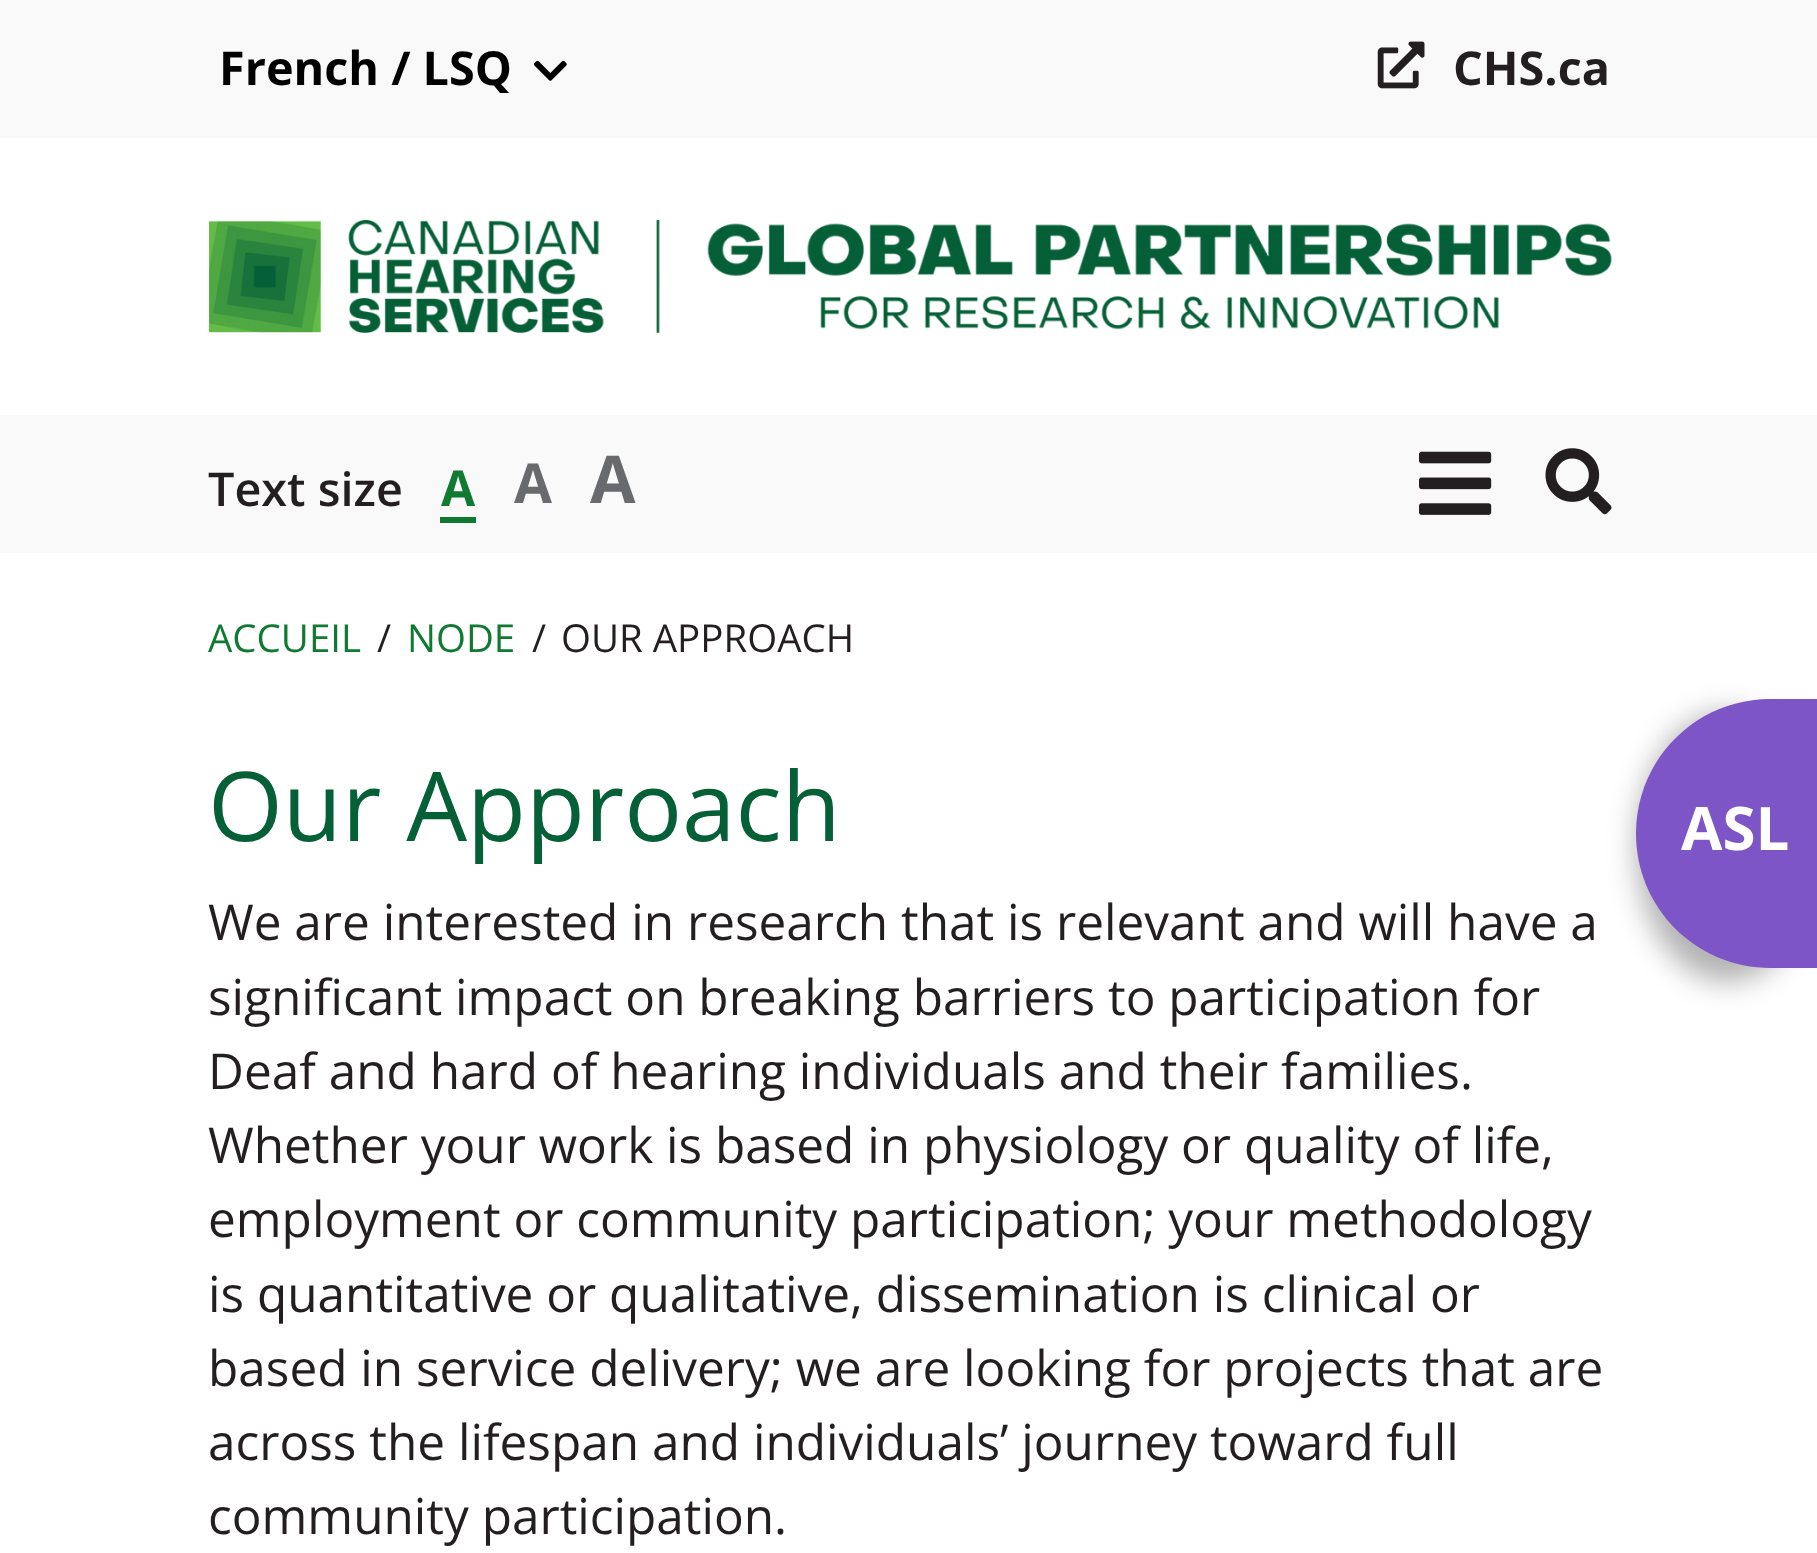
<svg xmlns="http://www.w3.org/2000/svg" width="1817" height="1553">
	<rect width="100%" height="100%" fill="#FFFFFF" />
	<rect x="0" y="0" width="1817" height="138" fill="#F9F9F9" />
	<text x="219" y="85" font-family="Open Sans" font-size="46.75" font-weight="700" fill="#000000">French / LSQ</text>
	<image x="534" y="60" width="33" height="21" href="assets/img1.png" />
	<image x="1377" y="41" width="48" height="48" href="assets/img2.png" />
	<text x="1453" y="85" font-family="Open Sans" font-size="46.75" font-weight="700" fill="#231F20">CHS.ca</text>
	<image x="209" y="220" width="1403" height="113" href="assets/img3.png" />
	<rect x="0" y="415" width="1817" height="138" fill="#F9F9F9" />
	<text x="208" y="506" font-family="Open Sans" font-size="46.75" font-weight="600" fill="#231F20">Text size</text>
	<text x="441" y="506" font-family="Open Sans" font-size="49.5" font-weight="700" fill="#117A32">A</text>
	<rect x="440" y="517" width="36" height="6" fill="#117A32" />
	<text x="514" y="503" font-family="Open Sans" font-size="55" font-weight="700" fill="#696A6D">A</text>
	<text x="590" y="503" font-family="Open Sans" font-size="66" font-weight="700" fill="#696A6D">A</text>
	<image x="1419" y="451" width="73" height="64" href="assets/img4.png" />
	<image x="1545" y="448" width="67" height="67" href="assets/img5.png" />
	<text x="208" y="652" font-family="Open Sans" font-size="38.5" fill="#117A32">ACCUEIL</text>
	<text x="377" y="652" font-family="Open Sans" font-size="38.5" fill="#231F20">/</text>
	<text x="407" y="652" font-family="Open Sans" font-size="38.5" fill="#117A32">NODE</text>
	<g font-family="Open Sans" font-size="38.5" fill="#231F20">
		<text x="532" y="652">/</text>
		<text x="561" y="652">OUR APPROACH</text>
	</g>
	<text x="208" y="841" font-family="Open Sans" font-size="96.25" fill="#056038">Our Approach</text>
	<rect x="1636" y="712" width="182" height="270" rx="135" fill="#000000" fill-opacity="0.3" filter="blur(14px)" />
	<path d="M1770.5 699H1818V968H1770.5C1696 968 1636 908 1636 833.5C1636 759 1696 699 1770.5 699Z" fill="#7D55C7" />
	<text x="1681" y="850" font-family="Open Sans" font-size="60" font-weight="700" fill="#FFFFFF">ASL</text>
	<g font-family="Open Sans" font-size="49.5" fill="#231F20">
		<text x="208" y="940">We are interested in research that is relevant and will have a</text>
		<text x="208" y="1015">significant impact on breaking barriers to participation for</text>
		<text x="208" y="1089">Deaf and hard of hearing individuals and their families.</text>
		<text x="208" y="1163">Whether your work is based in physiology or quality of life,</text>
		<text x="208" y="1237">employment or community participation; your methodology</text>
		<text x="208" y="1312">is quantitative or qualitative, dissemination is clinical or</text>
		<text x="208" y="1386">based in service delivery; we are looking for projects that are</text>
		<text x="208" y="1460">across the lifespan and individuals’ journey toward full</text>
		<text x="208" y="1534">community participation.</text>
	</g>
</svg>
